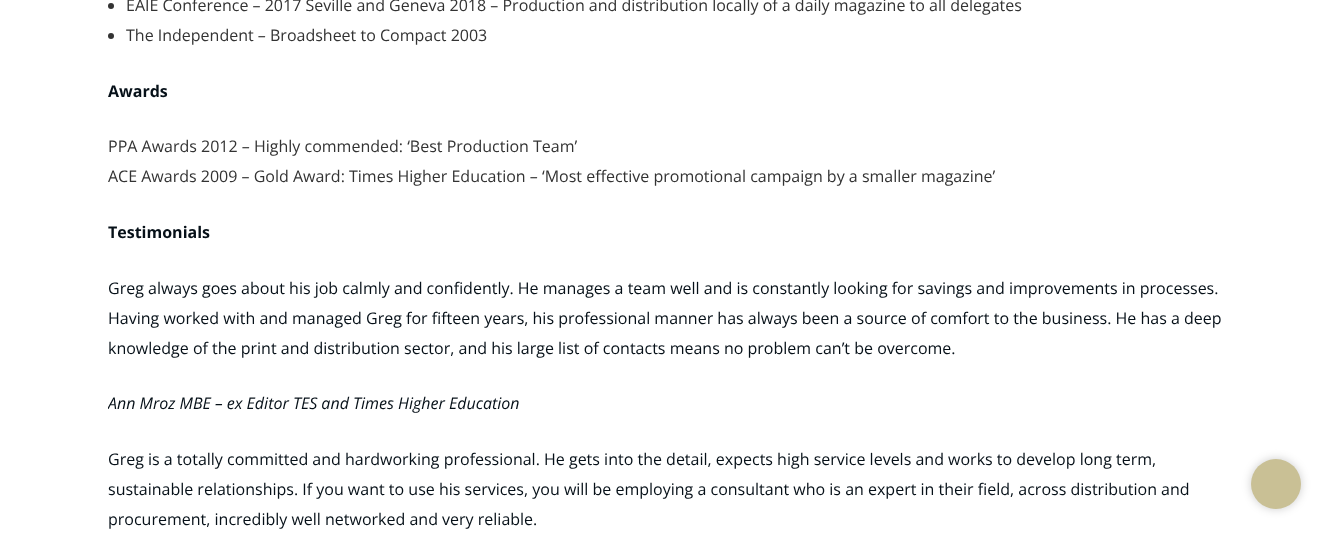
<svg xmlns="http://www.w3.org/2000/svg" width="1331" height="559">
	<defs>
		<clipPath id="clip1"><rect x="108" y="0" width="1116" height="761" /></clipPath>
	</defs>
	<rect width="100%" height="100%" fill="#FFFFFF" />
	<circle cx="111" cy="6" r="3" fill="#333333" />
	<text x="126" y="11" font-family="Open Sans" font-size="16" fill="#333333">EAIE Conference – 2017 Seville and Geneva 2018 – Production and distribution locally of a daily magazine to all delegates</text>
	<circle cx="111" cy="36" r="3" fill="#333333" />
	<text x="126" y="41" font-family="Open Sans" font-size="16" fill="#333333">The Independent – Broadsheet to Compact 2003</text>
	<text x="108" y="97" font-family="Open Sans" font-size="16" font-weight="700" fill="#061018">Awards</text>
	<g font-family="Open Sans" font-size="16" fill="#333333">
		<text x="108" y="152">PPA Awards 2012 – Highly commended: ‘Best Production Team’</text>
		<text x="108" y="182">ACE Awards 2009 – Gold Award: Times Higher Education – ‘Most effective promotional campaign by a smaller magazine’</text>
	</g>
	<g clip-path="url(#clip1)">
		<text x="108" y="238" font-family="Open Sans" font-size="16" font-weight="700" fill="#061018">Testimonials</text>
	</g>
	<g font-family="Open Sans" font-size="16" fill="#061018">
		<text x="108" y="294">Greg always goes about his job calmly and confidently. He manages a team well and is constantly looking for savings and improvements in processes.</text>
		<text x="108" y="324">Having worked with and managed Greg for fifteen years, his professional manner has always been a source of comfort to the business. He has a deep</text>
		<text x="108" y="354">knowledge of the print and distribution sector, and his large list of contacts means no problem can’t be overcome.</text>
	</g>
	<g clip-path="url(#clip1)">
		<text x="108" y="409" font-family="Open Sans" font-size="16" font-style="italic" fill="#061018">Ann Mroz MBE – ex Editor TES and Times Higher Education</text>
	</g>
	<g font-family="Open Sans" font-size="16" fill="#061018">
		<text x="108" y="465">Greg is a totally committed and hardworking professional. He gets into the detail, expects high service levels and works to develop long term,</text>
		<text x="108" y="495">sustainable relationships. If you want to use his services, you will be employing a consultant who is an expert in their field, across distribution and</text>
		<text x="108" y="525">procurement, incredibly well networked and very reliable.</text>
	</g>
	<rect x="1251" y="459" width="50" height="50" rx="25" fill="#000000" fill-opacity="0.2" filter="blur(5px)" />
	<circle cx="1276" cy="484" r="25" fill="#C9C095" />
</svg>
